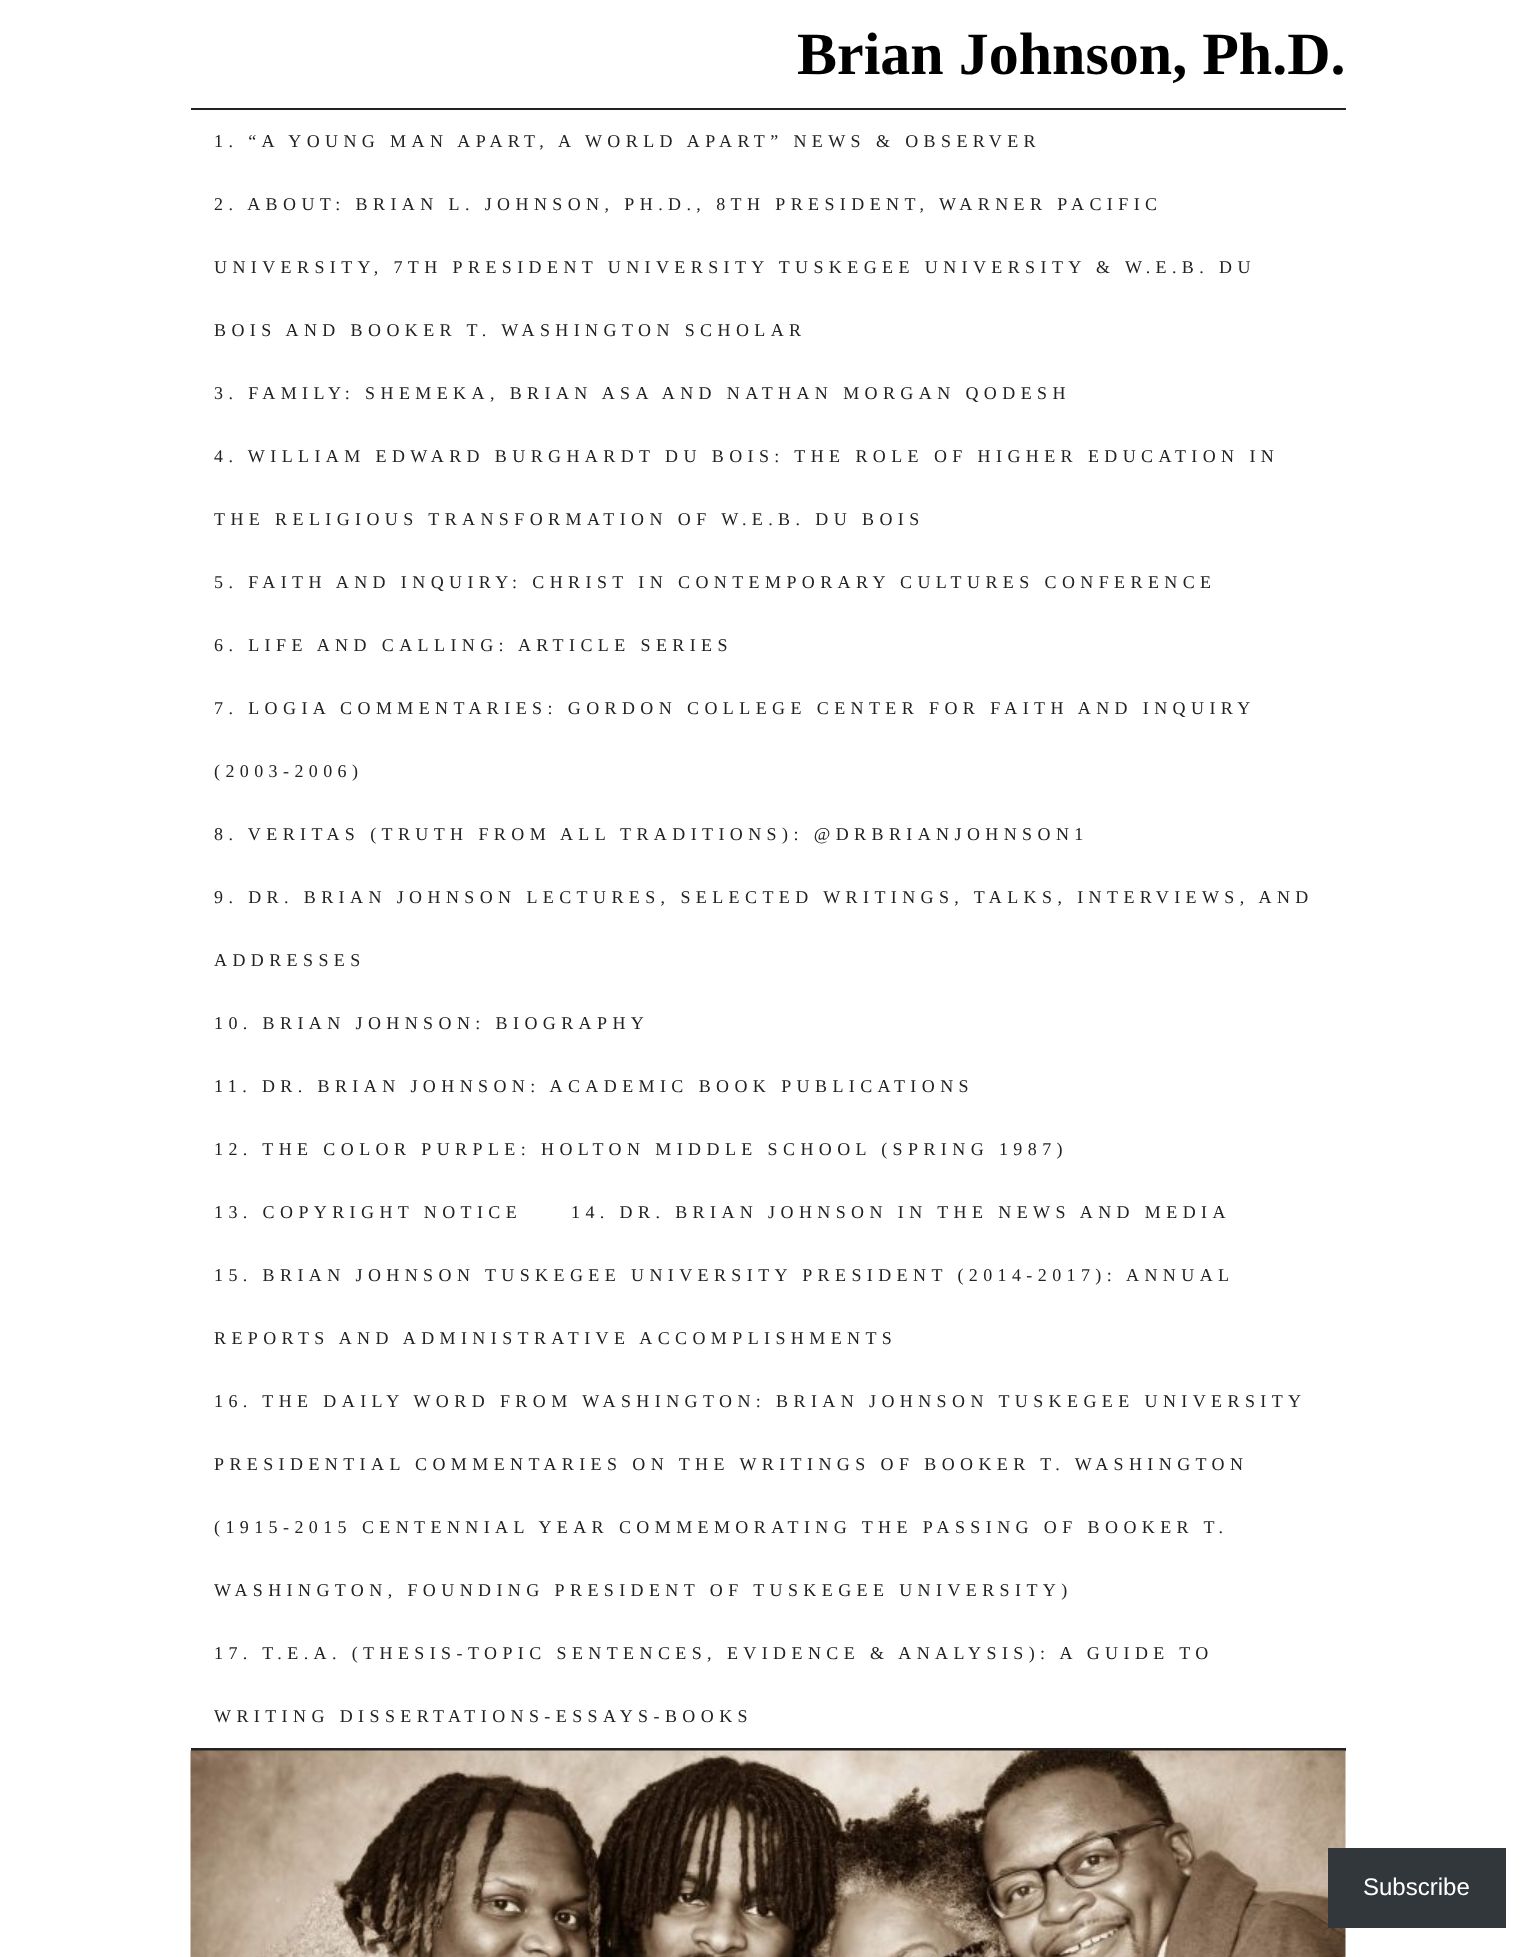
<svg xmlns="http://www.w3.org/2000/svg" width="1536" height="1957">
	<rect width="100%" height="100%" fill="#FFFFFF" />
	<text x="797" y="74" font-family="Liberation Serif" font-size="60" font-weight="700" fill="#000000">Brian Johnson, Ph.D.</text>
	<rect x="191" y="108" width="1155" height="2" fill="#222222" />
	<rect x="191" y="1748" width="1155" height="3" fill="#222222" />
	<g font-family="Liberation Serif" font-size="18" letter-spacing="5.4" fill="#222222">
		<text x="214" y="147">1. “A YOUNG MAN APART, A WORLD APART” NEWS &amp; OBSERVER</text>
		<text x="214" y="210">2. ABOUT: BRIAN L. JOHNSON, PH.D., 8TH PRESIDENT, WARNER PACIFIC</text>
		<text x="214" y="273">UNIVERSITY, 7TH PRESIDENT UNIVERSITY TUSKEGEE UNIVERSITY &amp; W.E.B. DU</text>
		<text x="214" y="336">BOIS AND BOOKER T. WASHINGTON SCHOLAR</text>
		<text x="214" y="399">3. FAMILY: SHEMEKA, BRIAN ASA AND NATHAN MORGAN QODESH</text>
		<text x="214" y="462">4. WILLIAM EDWARD BURGHARDT DU BOIS: THE ROLE OF HIGHER EDUCATION IN</text>
		<text x="214" y="525">THE RELIGIOUS TRANSFORMATION OF W.E.B. DU BOIS</text>
		<text x="214" y="588">5. FAITH AND INQUIRY: CHRIST IN CONTEMPORARY CULTURES CONFERENCE</text>
		<text x="214" y="651">6. LIFE AND CALLING: ARTICLE SERIES</text>
		<text x="214" y="714">7. LOGIA COMMENTARIES: GORDON COLLEGE CENTER FOR FAITH AND INQUIRY</text>
		<text x="214" y="777">(2003-2006)</text>
		<text x="214" y="840">8. VERITAS (TRUTH FROM ALL TRADITIONS): @DRBRIANJOHNSON1</text>
		<text x="214" y="903">9. DR. BRIAN JOHNSON LECTURES, SELECTED WRITINGS, TALKS, INTERVIEWS, AND</text>
		<text x="214" y="966">ADDRESSES</text>
		<text x="214" y="1029">10. BRIAN JOHNSON: BIOGRAPHY</text>
		<text x="214" y="1092">11. DR. BRIAN JOHNSON: ACADEMIC BOOK PUBLICATIONS</text>
		<text x="214" y="1155">12. THE COLOR PURPLE: HOLTON MIDDLE SCHOOL (SPRING 1987)</text>
		<text x="214" y="1218">13. COPYRIGHT NOTICE</text>
		<text x="571" y="1218">14. DR. BRIAN JOHNSON IN THE NEWS AND MEDIA</text>
		<text x="214" y="1281">15. BRIAN JOHNSON TUSKEGEE UNIVERSITY PRESIDENT (2014-2017): ANNUAL</text>
		<text x="214" y="1344">REPORTS AND ADMINISTRATIVE ACCOMPLISHMENTS</text>
		<text x="214" y="1407">16. THE DAILY WORD FROM WASHINGTON: BRIAN JOHNSON TUSKEGEE UNIVERSITY</text>
		<text x="214" y="1470">PRESIDENTIAL COMMENTARIES ON THE WRITINGS OF BOOKER T. WASHINGTON</text>
		<text x="214" y="1533">(1915-2015 CENTENNIAL YEAR COMMEMORATING THE PASSING OF BOOKER T.</text>
		<text x="214" y="1596">WASHINGTON, FOUNDING PRESIDENT OF TUSKEGEE UNIVERSITY)</text>
		<text x="214" y="1659">17. T.E.A. (THESIS-TOPIC SENTENCES, EVIDENCE &amp; ANALYSIS): A GUIDE TO</text>
		<text x="214" y="1722">WRITING DISSERTATIONS-ESSAYS-BOOKS</text>
	</g>
	<image x="190" y="1750" width="1156" height="207" href="assets/img1.png" />
	<rect x="1328" y="1848" width="178" height="80" fill="#32373C" />
	<text x="1363" y="1895" font-family="Liberation Sans" font-size="24" fill="#FFFFFF">Subscribe</text>
</svg>
